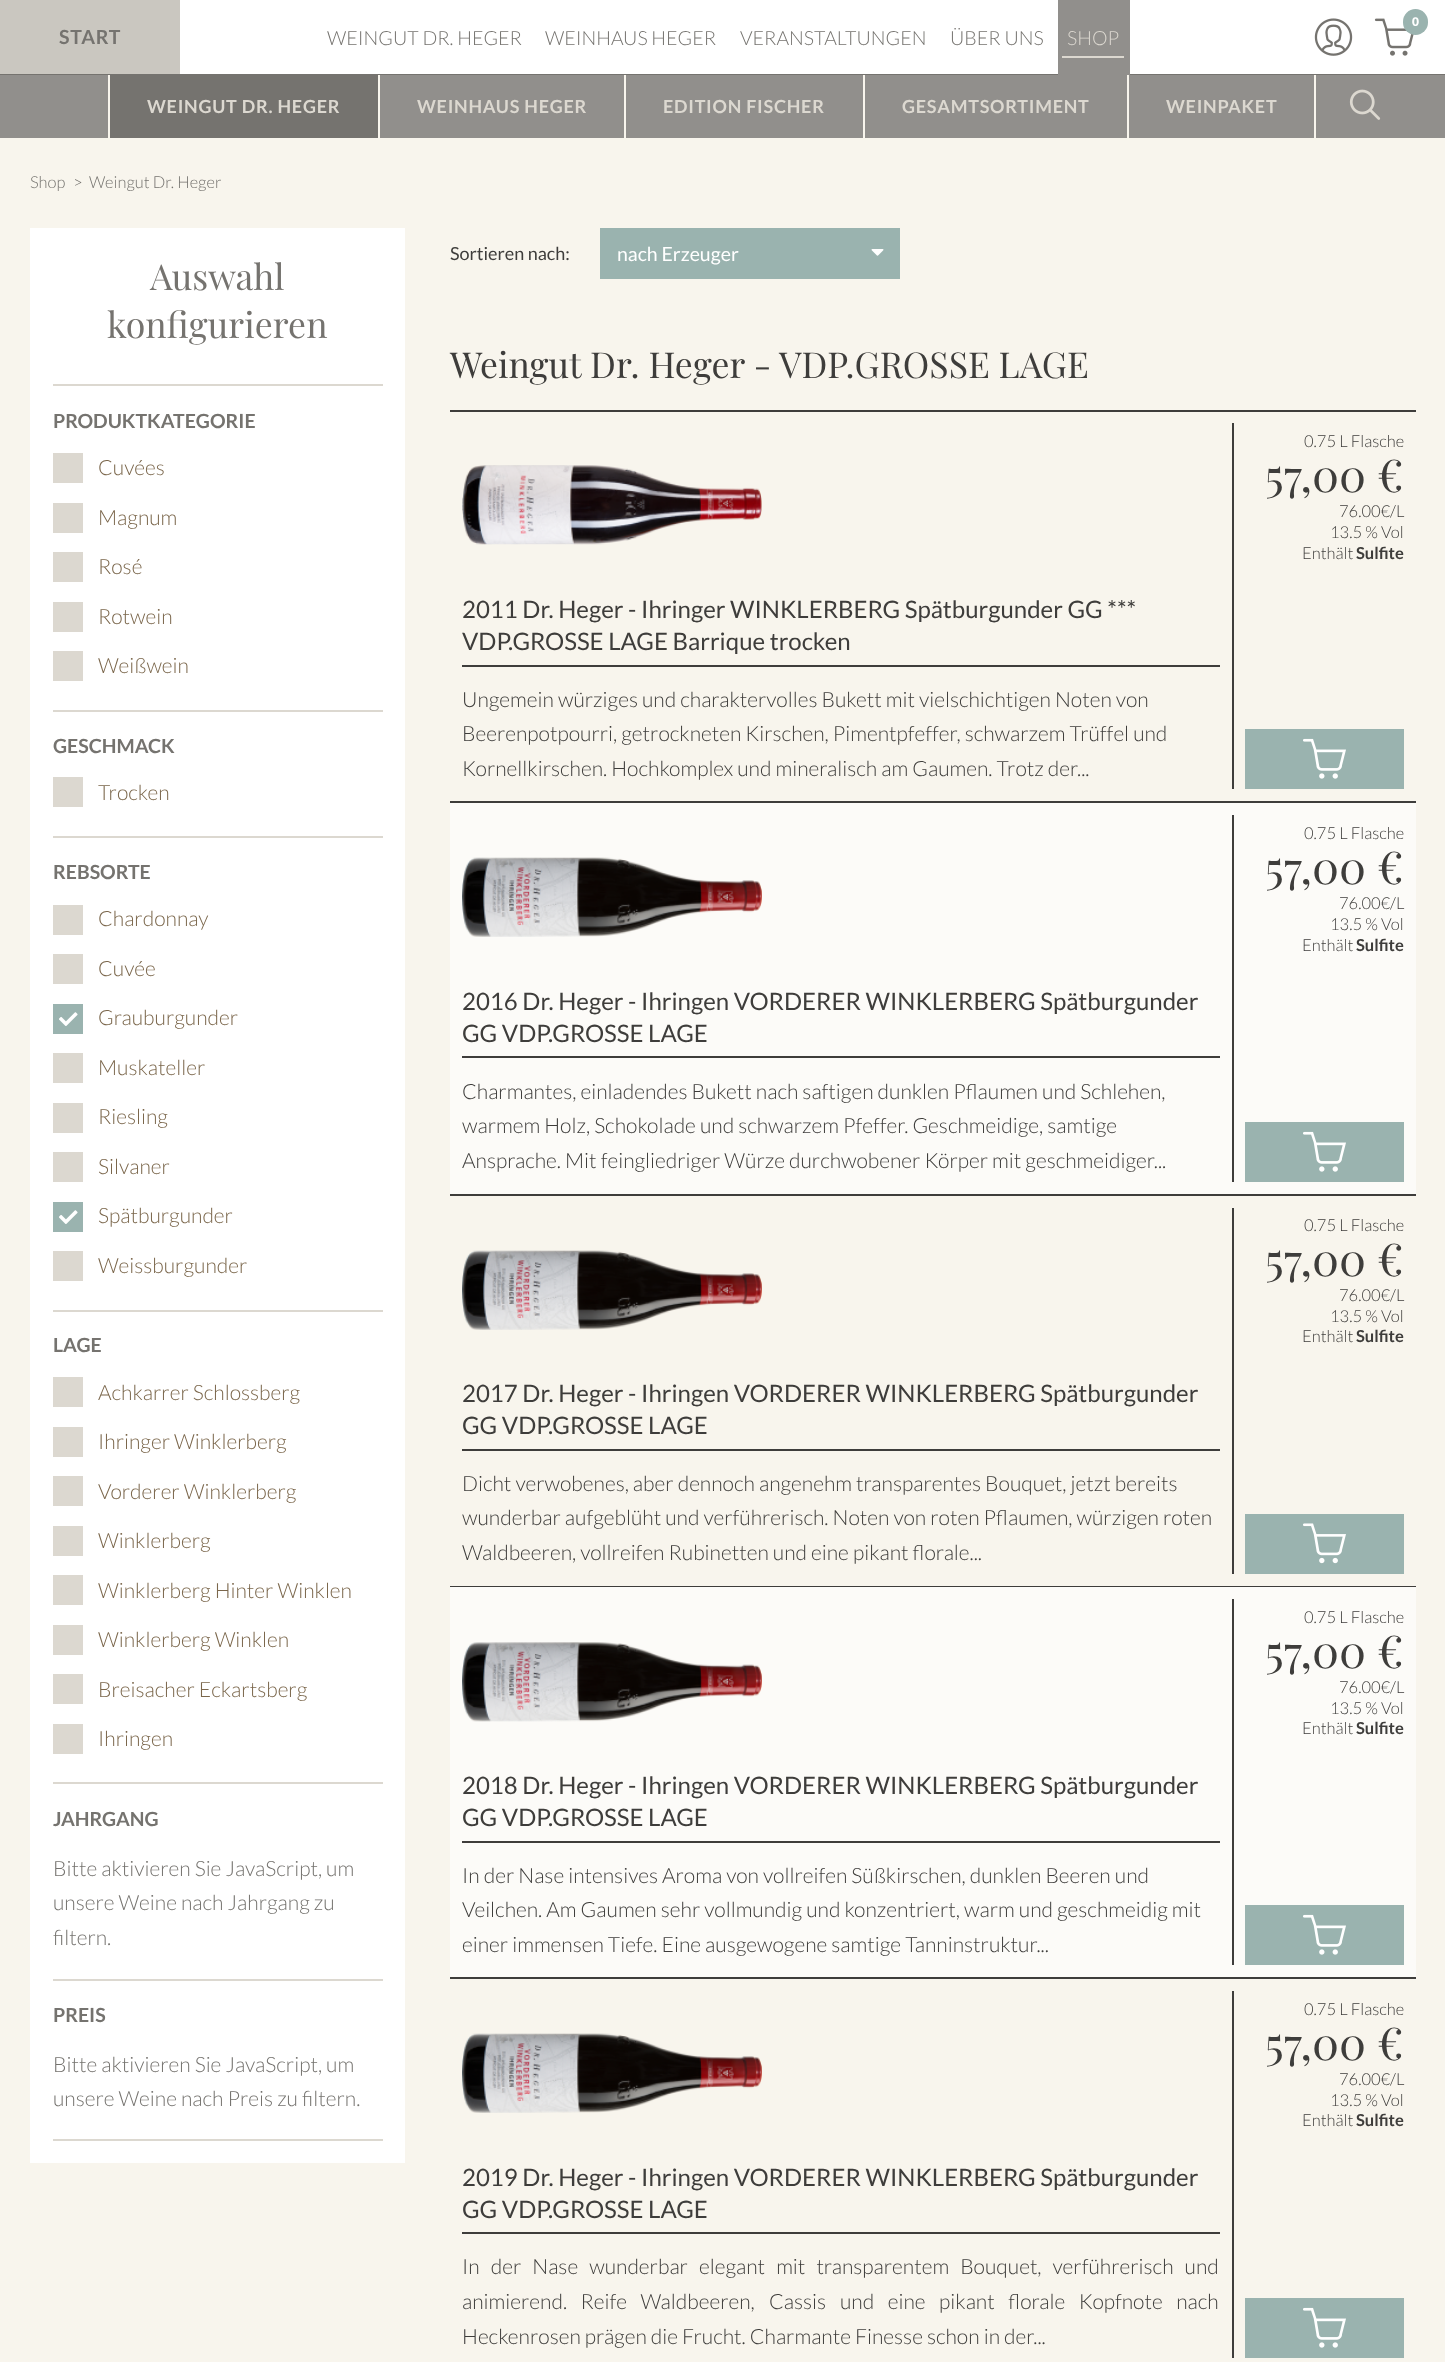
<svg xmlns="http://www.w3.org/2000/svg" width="1445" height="2362">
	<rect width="100%" height="100%" fill="#F8F5ED" />
	<rect x="180" y="0" width="1265" height="74" fill="#FFFFFF" />
	<rect x="0" y="74" width="1445" height="1" fill="#75736F" />
	<image x="1314" y="18" width="39" height="38" href="assets/img1.png" />
	<image x="1374" y="18" width="40" height="38" href="assets/img2.png" />
	<rect x="1403" y="9" width="25" height="26" rx="12.5" fill="#9AB3AF" />
	<text x="1412" y="26" font-family="Lato" font-size="12" font-weight="900" fill="#FFFFFF">0</text>
	<rect x="0" y="0" width="180" height="74" fill="#CAC7C0" />
	<text x="59" y="44" font-family="Lato" font-size="19.5" font-weight="700" letter-spacing="0.75" fill="#75736F">START</text>
	<g font-family="Lato" font-size="19.5" font-weight="300" fill="#75736F">
		<text x="327" y="45">WEINGUT DR. HEGER</text>
		<text x="545" y="45">WEINHAUS HEGER</text>
		<text x="740" y="45">VERANSTALTUNGEN</text>
		<text x="950" y="45">ÜBER UNS</text>
	</g>
	<rect x="1058" y="0" width="72" height="75" fill="#918F8C" />
	<text x="1067" y="45" font-family="Lato" font-size="19.5" font-weight="300" fill="#DCD8D0">SHOP</text>
	<rect x="1062" y="56" width="62" height="2" fill="#DCD8D0" />
	<rect x="0" y="75" width="1445" height="63" fill="#918F8C" />
	<rect x="378" y="75" width="2" height="63" fill="#F8F5ED" />
	<rect x="108" y="75" width="2" height="63" fill="#F8F5ED" />
	<rect x="110" y="75" width="268" height="63" fill="#75736F" />
	<text x="147" y="113" font-family="Lato" font-size="18" font-weight="700" letter-spacing="0.75" fill="#DCD8D0">WEINGUT DR. HEGER</text>
	<rect x="624" y="75" width="2" height="63" fill="#F8F5ED" />
	<text x="417" y="113" font-family="Lato" font-size="18" font-weight="700" letter-spacing="0.75" fill="#DCD8D0">WEINHAUS HEGER</text>
	<rect x="863" y="75" width="2" height="63" fill="#F8F5ED" />
	<text x="663" y="113" font-family="Lato" font-size="18" font-weight="700" letter-spacing="0.75" fill="#DCD8D0">EDITION FISCHER</text>
	<rect x="1127" y="75" width="2" height="63" fill="#F8F5ED" />
	<text x="902" y="113" font-family="Lato" font-size="18" font-weight="700" letter-spacing="0.75" fill="#DCD8D0">GESAMTSORTIMENT</text>
	<rect x="1314" y="75" width="2" height="63" fill="#F8F5ED" />
	<text x="1166" y="113" font-family="Lato" font-size="18" font-weight="700" letter-spacing="0.75" fill="#DCD8D0">WEINPAKET</text>
	<image x="1349" y="89" width="32" height="31" href="assets/img3.png" />
	<g font-family="Lato" font-size="16.5" font-weight="300" fill="#75736F">
		<text x="30" y="188">Shop</text>
		<text x="73" y="188">&gt;</text>
		<text x="89" y="188">Weingut Dr. Heger</text>
	</g>
	<rect x="30" y="228" width="375" height="1935" fill="#FFFFFF" />
	<rect x="53" y="384" width="330" height="2" fill="#DCD8D0" />
	<g font-family="Playfair Display" font-size="35.75" fill="#75736F">
		<text x="150" y="290">Auswahl</text>
		<text x="107" y="338">konfigurieren</text>
	</g>
	<rect x="53" y="710" width="330" height="2" fill="#DCD8D0" />
	<text x="53" y="428" font-family="Lato" font-size="19.5" font-weight="700" fill="#75736F">PRODUKTKATEGORIE</text>
	<rect x="53" y="453" width="30" height="30" fill="#DCD8D0" />
	<text x="98" y="475" font-family="Lato" font-size="21" font-weight="300" fill="#7B674C">Cuvées</text>
	<rect x="53" y="503" width="30" height="30" fill="#DCD8D0" />
	<text x="98" y="525" font-family="Lato" font-size="21" font-weight="300" fill="#7B674C">Magnum</text>
	<rect x="53" y="552" width="30" height="30" fill="#DCD8D0" />
	<text x="98" y="574" font-family="Lato" font-size="21" font-weight="300" fill="#7B674C">Rosé</text>
	<rect x="53" y="602" width="30" height="30" fill="#DCD8D0" />
	<text x="98" y="624" font-family="Lato" font-size="21" font-weight="300" fill="#7B674C">Rotwein</text>
	<rect x="53" y="651" width="30" height="30" fill="#DCD8D0" />
	<text x="98" y="673" font-family="Lato" font-size="21" font-weight="300" fill="#7B674C">Weißwein</text>
	<rect x="53" y="836" width="330" height="2" fill="#DCD8D0" />
	<text x="53" y="753" font-family="Lato" font-size="19.5" font-weight="700" fill="#75736F">GESCHMACK</text>
	<rect x="53" y="777" width="30" height="30" fill="#DCD8D0" />
	<text x="98" y="800" font-family="Lato" font-size="21" font-weight="300" fill="#7B674C">Trocken</text>
	<rect x="53" y="1310" width="330" height="2" fill="#DCD8D0" />
	<text x="53" y="879" font-family="Lato" font-size="19.5" font-weight="700" fill="#75736F">REBSORTE</text>
	<rect x="53" y="905" width="30" height="30" fill="#DCD8D0" />
	<text x="98" y="926" font-family="Lato" font-size="21" font-weight="300" fill="#7B674C">Chardonnay</text>
	<rect x="53" y="954" width="30" height="30" fill="#DCD8D0" />
	<text x="98" y="976" font-family="Lato" font-size="21" font-weight="300" fill="#7B674C">Cuvée</text>
	<rect x="53" y="1004" width="30" height="30" fill="#9AB3AF" />
	<text x="98" y="1025" font-family="Lato" font-size="21" font-weight="300" fill="#7B674C">Grauburgunder</text>
	<image x="59" y="1012" width="19" height="14" href="assets/img4.png" />
	<rect x="53" y="1053" width="30" height="30" fill="#DCD8D0" />
	<text x="98" y="1075" font-family="Lato" font-size="21" font-weight="300" fill="#7B674C">Muskateller</text>
	<rect x="53" y="1103" width="30" height="30" fill="#DCD8D0" />
	<text x="98" y="1124" font-family="Lato" font-size="21" font-weight="300" fill="#7B674C">Riesling</text>
	<rect x="53" y="1152" width="30" height="30" fill="#DCD8D0" />
	<text x="98" y="1174" font-family="Lato" font-size="21" font-weight="300" fill="#7B674C">Silvaner</text>
	<rect x="53" y="1202" width="30" height="30" fill="#9AB3AF" />
	<text x="98" y="1223" font-family="Lato" font-size="21" font-weight="300" fill="#7B674C">Spätburgunder</text>
	<image x="59" y="1210" width="19" height="14" href="assets/img4.png" />
	<rect x="53" y="1251" width="30" height="30" fill="#DCD8D0" />
	<text x="98" y="1273" font-family="Lato" font-size="21" font-weight="300" fill="#7B674C">Weissburgunder</text>
	<rect x="53" y="1782" width="330" height="2" fill="#DCD8D0" />
	<text x="53" y="1352" font-family="Lato" font-size="19.5" font-weight="700" fill="#75736F">LAGE</text>
	<rect x="53" y="1377" width="30" height="30" fill="#DCD8D0" />
	<text x="98" y="1400" font-family="Lato" font-size="21" font-weight="300" fill="#7B674C">Achkarrer Schlossberg</text>
	<rect x="53" y="1427" width="30" height="30" fill="#DCD8D0" />
	<text x="98" y="1449" font-family="Lato" font-size="21" font-weight="300" fill="#7B674C">Ihringer Winklerberg</text>
	<rect x="53" y="1476" width="30" height="30" fill="#DCD8D0" />
	<text x="98" y="1499" font-family="Lato" font-size="21" font-weight="300" fill="#7B674C">Vorderer Winklerberg</text>
	<rect x="53" y="1526" width="30" height="30" fill="#DCD8D0" />
	<text x="98" y="1548" font-family="Lato" font-size="21" font-weight="300" fill="#7B674C">Winklerberg</text>
	<rect x="53" y="1575" width="30" height="30" fill="#DCD8D0" />
	<text x="98" y="1598" font-family="Lato" font-size="21" font-weight="300" fill="#7B674C">Winklerberg Hinter Winklen</text>
	<rect x="53" y="1625" width="30" height="30" fill="#DCD8D0" />
	<text x="98" y="1647" font-family="Lato" font-size="21" font-weight="300" fill="#7B674C">Winklerberg Winklen</text>
	<rect x="53" y="1674" width="30" height="30" fill="#DCD8D0" />
	<text x="98" y="1697" font-family="Lato" font-size="21" font-weight="300" fill="#7B674C">Breisacher Eckartsberg</text>
	<rect x="53" y="1724" width="30" height="30" fill="#DCD8D0" />
	<text x="98" y="1746" font-family="Lato" font-size="21" font-weight="300" fill="#7B674C">Ihringen</text>
	<rect x="53" y="1979" width="330" height="2" fill="#DCD8D0" />
	<text x="53" y="1826" font-family="Lato" font-size="19.5" font-weight="700" fill="#75736F">JAHRGANG</text>
	<g font-family="Lato" font-size="21" font-weight="300" fill="#75736F">
		<text x="53" y="1876">Bitte aktivieren Sie JavaScript, um</text>
		<text x="53" y="1910">unsere Weine nach Jahrgang zu</text>
		<text x="53" y="1945">filtern.</text>
	</g>
	<rect x="53" y="2139" width="330" height="2" fill="#DCD8D0" />
	<text x="53" y="2022" font-family="Lato" font-size="19.5" font-weight="700" fill="#75736F">PREIS</text>
	<g font-family="Lato" font-size="21" font-weight="300" fill="#75736F">
		<text x="53" y="2072">Bitte aktivieren Sie JavaScript, um</text>
		<text x="53" y="2106">unsere Weine nach Preis zu filtern.</text>
	</g>
	<text x="450" y="260" font-family="Lato" font-size="18" fill="#3E3D3B">Sortieren nach:</text>
	<rect x="600" y="228" width="300" height="51" fill="#9AB3AF" />
	<text x="617" y="261" font-family="Lato" font-size="19.5" fill="#FFFFFF">nach Erzeuger</text>
	<image x="871" y="249" width="13" height="7" href="assets/img5.png" />
	<rect x="450" y="410" width="966" height="2" fill="#3E3D3B" />
	<text x="450" y="378" font-family="Playfair Display" font-size="35.75" fill="#3E3D3B">Weingut Dr. Heger - VDP.GROSSE LAGE</text>
	<rect x="450" y="801" width="966" height="2" fill="#3E3D3B" />
	<image x="462" y="465" width="300" height="80" href="assets/img6.png" />
	<rect x="1232" y="423" width="2" height="366" fill="#3E3D3B" />
	<text x="1304" y="447" font-family="Lato" font-size="16.5" font-weight="300" fill="#3E3D3B">0.75 L Flasche</text>
	<text x="1265" y="492" font-family="Playfair Display" font-size="45" fill="#3E3D3B">57,00 €</text>
	<g font-family="Lato" font-size="16.5" font-weight="300" fill="#3E3D3B">
		<text x="1339" y="517">76.00€/L</text>
		<text x="1330" y="538">13.5 % Vol</text>
		<text x="1302" y="559">Enthält</text>
	</g>
	<text x="1356" y="559" font-family="Lato" font-size="16.5" font-weight="700" fill="#3E3D3B">Sulfite</text>
	<rect x="1245" y="729" width="159" height="60" fill="#9AB3AF" />
	<image x="1303" y="738" width="43" height="41" href="assets/img7.png" />
	<rect x="462" y="665" width="758" height="2" fill="#3E3D3B" />
	<g font-family="Lato" font-size="24" fill="#3E3D3B">
		<text x="462" y="618">2011 Dr. Heger - Ihringer WINKLERBERG Spätburgunder GG ***</text>
		<text x="462" y="650">VDP.GROSSE LAGE Barrique trocken</text>
	</g>
	<g font-family="Lato" font-size="21" font-weight="300" fill="#3E3D3B">
		<text x="462" y="707">Ungemein würziges und charaktervolles Bukett mit vielschichtigen Noten von</text>
		<text x="462" y="741">Beerenpotpourri, getrockneten Kirschen, Pimentpfeffer, schwarzem Trüffel und</text>
		<text x="462" y="776">Kornellkirschen. Hochkomplex und mineralisch am Gaumen. Trotz der...</text>
	</g>
	<rect x="450" y="803" width="966" height="391" fill="#FCFBF8" />
	<rect x="450" y="1194" width="966" height="2" fill="#3E3D3B" />
	<image x="462" y="857" width="300" height="80" href="assets/img8.png" />
	<rect x="1232" y="815" width="2" height="367" fill="#3E3D3B" />
	<text x="1304" y="839" font-family="Lato" font-size="16.5" font-weight="300" fill="#3E3D3B">0.75 L Flasche</text>
	<text x="1265" y="884" font-family="Playfair Display" font-size="45" fill="#3E3D3B">57,00 €</text>
	<g font-family="Lato" font-size="16.5" font-weight="300" fill="#3E3D3B">
		<text x="1339" y="909">76.00€/L</text>
		<text x="1330" y="930">13.5 % Vol</text>
		<text x="1302" y="951">Enthält</text>
	</g>
	<text x="1356" y="951" font-family="Lato" font-size="16.5" font-weight="700" fill="#3E3D3B">Sulfite</text>
	<rect x="1245" y="1122" width="159" height="60" fill="#9AB3AF" />
	<image x="1303" y="1131" width="43" height="41" href="assets/img7.png" />
	<rect x="462" y="1056" width="758" height="2" fill="#3E3D3B" />
	<g font-family="Lato" font-size="24" fill="#3E3D3B">
		<text x="462" y="1010">2016 Dr. Heger - Ihringen VORDERER WINKLERBERG Spätburgunder</text>
		<text x="462" y="1042">GG VDP.GROSSE LAGE</text>
	</g>
	<g font-family="Lato" font-size="21" font-weight="300" fill="#3E3D3B">
		<text x="462" y="1099">Charmantes, einladendes Bukett nach saftigen dunklen Pflaumen und Schlehen,</text>
		<text x="462" y="1133">warmem Holz, Schokolade und schwarzem Pfeffer. Geschmeidige, samtige</text>
		<text x="462" y="1168">Ansprache. Mit feingliedriger Würze durchwobener Körper mit geschmeidiger...</text>
	</g>
	<rect x="450" y="1586" width="966" height="1" fill="#3E3D3B" />
	<image x="462" y="1250" width="300" height="80" href="assets/img9.png" />
	<rect x="1232" y="1208" width="2" height="366" fill="#3E3D3B" />
	<text x="1304" y="1231" font-family="Lato" font-size="16.5" font-weight="300" fill="#3E3D3B">0.75 L Flasche</text>
	<text x="1265" y="1276" font-family="Playfair Display" font-size="45" fill="#3E3D3B">57,00 €</text>
	<g font-family="Lato" font-size="16.5" font-weight="300" fill="#3E3D3B">
		<text x="1339" y="1301">76.00€/L</text>
		<text x="1330" y="1322">13.5 % Vol</text>
		<text x="1302" y="1342">Enthält</text>
	</g>
	<text x="1356" y="1342" font-family="Lato" font-size="16.5" font-weight="700" fill="#3E3D3B">Sulfite</text>
	<rect x="1245" y="1514" width="159" height="60" fill="#9AB3AF" />
	<image x="1303" y="1523" width="43" height="41" href="assets/img10.png" />
	<rect x="462" y="1449" width="758" height="2" fill="#3E3D3B" />
	<g font-family="Lato" font-size="24" fill="#3E3D3B">
		<text x="462" y="1402">2017 Dr. Heger - Ihringen VORDERER WINKLERBERG Spätburgunder</text>
		<text x="462" y="1434">GG VDP.GROSSE LAGE</text>
	</g>
	<g font-family="Lato" font-size="21" font-weight="300" fill="#3E3D3B">
		<text x="462" y="1491">Dicht verwobenes, aber dennoch angenehm transparentes Bouquet, jetzt bereits</text>
		<text x="462" y="1525">wunderbar aufgeblüht und verführerisch. Noten von roten Pflaumen, würzigen roten</text>
		<text x="462" y="1560">Waldbeeren, vollreifen Rubinetten und eine pikant florale...</text>
	</g>
	<rect x="450" y="1587" width="966" height="390" fill="#FCFBF8" />
	<rect x="450" y="1977" width="966" height="2" fill="#3E3D3B" />
	<image x="462" y="1642" width="300" height="80" href="assets/img11.png" />
	<rect x="1232" y="1599" width="2" height="366" fill="#3E3D3B" />
	<text x="1304" y="1623" font-family="Lato" font-size="16.5" font-weight="300" fill="#3E3D3B">0.75 L Flasche</text>
	<text x="1265" y="1668" font-family="Playfair Display" font-size="45" fill="#3E3D3B">57,00 €</text>
	<g font-family="Lato" font-size="16.5" font-weight="300" fill="#3E3D3B">
		<text x="1339" y="1693">76.00€/L</text>
		<text x="1330" y="1714">13.5 % Vol</text>
		<text x="1302" y="1734">Enthält</text>
	</g>
	<text x="1356" y="1734" font-family="Lato" font-size="16.5" font-weight="700" fill="#3E3D3B">Sulfite</text>
	<rect x="1245" y="1905" width="159" height="60" fill="#9AB3AF" />
	<image x="1303" y="1914" width="43" height="41" href="assets/img7.png" />
	<rect x="462" y="1841" width="758" height="2" fill="#3E3D3B" />
	<g font-family="Lato" font-size="24" fill="#3E3D3B">
		<text x="462" y="1794">2018 Dr. Heger - Ihringen VORDERER WINKLERBERG Spätburgunder</text>
		<text x="462" y="1826">GG VDP.GROSSE LAGE</text>
	</g>
	<g font-family="Lato" font-size="21" font-weight="300" fill="#3E3D3B">
		<text x="462" y="1883">In der Nase intensives Aroma von vollreifen Süßkirschen, dunklen Beeren und</text>
		<text x="462" y="1917">Veilchen. Am Gaumen sehr vollmundig und konzentriert, warm und geschmeidig mit</text>
		<text x="462" y="1952">einer immensen Tiefe. Eine ausgewogene samtige Tanninstruktur...</text>
	</g>
	<image x="462" y="2033" width="300" height="80" href="assets/img12.png" />
	<rect x="1232" y="1991" width="2" height="367" fill="#3E3D3B" />
	<text x="1304" y="2015" font-family="Lato" font-size="16.5" font-weight="300" fill="#3E3D3B">0.75 L Flasche</text>
	<text x="1265" y="2060" font-family="Playfair Display" font-size="45" fill="#3E3D3B">57,00 €</text>
	<g font-family="Lato" font-size="16.5" font-weight="300" fill="#3E3D3B">
		<text x="1339" y="2085">76.00€/L</text>
		<text x="1330" y="2106">13.5 % Vol</text>
		<text x="1302" y="2126">Enthält</text>
	</g>
	<text x="1356" y="2126" font-family="Lato" font-size="16.5" font-weight="700" fill="#3E3D3B">Sulfite</text>
	<rect x="1245" y="2298" width="159" height="60" fill="#9AB3AF" />
	<image x="1303" y="2307" width="43" height="41" href="assets/img7.png" />
	<rect x="462" y="2232" width="758" height="2" fill="#3E3D3B" />
	<g font-family="Lato" font-size="24" fill="#3E3D3B">
		<text x="462" y="2186">2019 Dr. Heger - Ihringen VORDERER WINKLERBERG Spätburgunder</text>
		<text x="462" y="2218">GG VDP.GROSSE LAGE</text>
	</g>
	<g font-family="Lato" font-size="21" font-weight="300" fill="#3E3D3B">
		<text x="462" y="2274" word-spacing="7">In der Nase wunderbar elegant mit transparentem Bouquet, verführerisch und</text>
		<text x="462" y="2309" word-spacing="9.5">animierend. Reife Waldbeeren,</text>
		<text x="769" y="2309">Cassis</text>
		<text x="840" y="2309" word-spacing="9.5">und eine pikant florale Kopfnote nach</text>
		<text x="462" y="2344">Heckenrosen prägen die Frucht. Charmante Finesse schon in der...</text>
	</g>
</svg>
